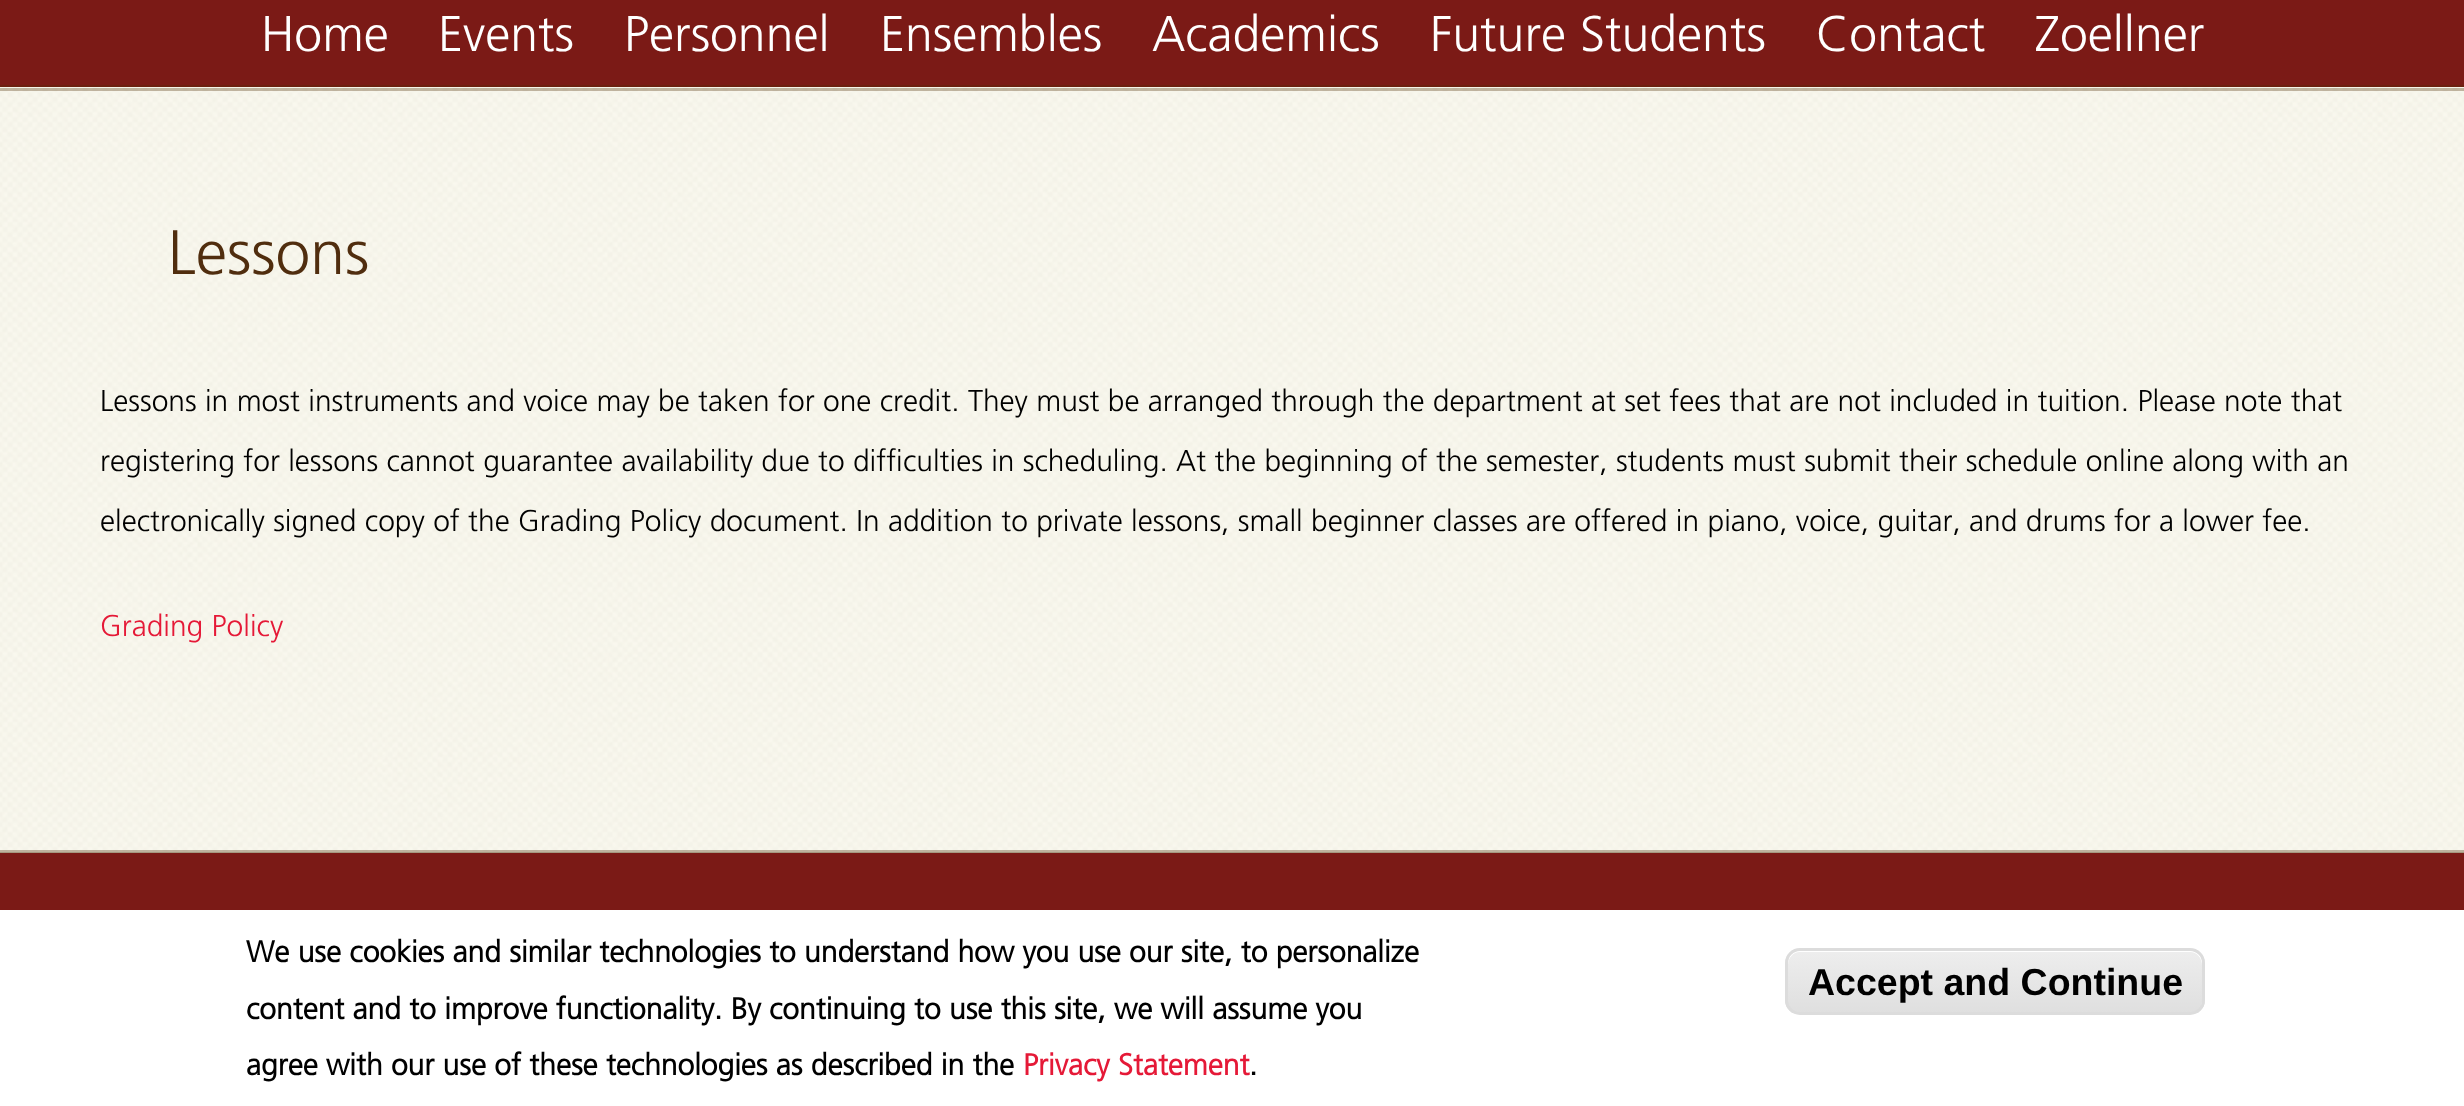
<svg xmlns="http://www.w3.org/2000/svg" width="2464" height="1106">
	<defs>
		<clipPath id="clip1"><rect x="1785" y="948" width="420" height="67" rx="15" /></clipPath>
		<linearGradient id="g1" gradientUnits="userSpaceOnUse" x1="1995" y1="950" x2="1995" y2="1013"><stop offset="0.05" stop-color="#EDEDED" /><stop offset="1" stop-color="#DFDFDF" /></linearGradient>
	</defs>
	<rect width="100%" height="100%" fill="#D1CCBD" />
	<rect x="0" y="0" width="2464" height="85" fill="#7B1A16" />
	<rect x="0" y="85" width="2464" height="2" fill="#6D2010" />
	<g font-family="Frutiger" font-size="50" font-weight="300" fill="#FFFFFF">
		<text x="261" y="51">Home</text>
		<text x="438" y="51">Events</text>
		<text x="624" y="51">Personnel</text>
		<text x="880" y="51">Ensembles</text>
		<text x="1152" y="51">Academics</text>
		<text x="1430" y="51">Future Students</text>
		<text x="1816" y="51">Contact</text>
		<text x="2035" y="51">Zoellner</text>
	</g>
	<image x="0" y="87" width="2464" height="765" href="assets/img1.png" />
	<rect x="0" y="88" width="2464" height="3" fill="#502D03" fill-opacity="0.33" />
	<rect x="0" y="850" width="2464" height="3" fill="#502D03" fill-opacity="0.33" />
	<text x="168" y="274" font-family="Frutiger" font-size="62.5" font-weight="300" fill="#502D0E">Lessons</text>
	<g font-family="Frutiger" font-size="30" font-weight="300" fill="#000000">
		<text x="100" y="411">Lessons in most instruments and voice may be taken for one credit. They must be arranged through the department at set fees that are not included in tuition. Please note that</text>
		<text x="100" y="471">registering for lessons cannot guarantee availability due to difficulties in scheduling. At the beginning of the semester, students must submit their schedule online along with an</text>
		<text x="100" y="531">electronically signed copy of the Grading Policy document. In addition to private lessons, small beginner classes are offered in piano, voice, guitar, and drums for a lower fee.</text>
	</g>
	<text x="100" y="636" font-family="Frutiger" font-size="30" font-weight="300" fill="#E51937">Grading Policy</text>
	<rect x="0" y="853" width="2464" height="57" fill="#7B1A16" />
	<rect x="0" y="910" width="2464" height="196" fill="#FFFFFF" />
	<g font-family="Frutiger" font-size="30" font-weight="700" fill="#000000">
		<text x="246" y="962">We use cookies and similar technologies to understand how you use our site, to personalize</text>
		<text x="246" y="1019">content and to improve functionality. By continuing to use this site, we will assume you</text>
		<text x="246" y="1075">agree with our use of these technologies as described in the</text>
	</g>
	<text x="1023" y="1075" font-family="Frutiger" font-size="30" font-weight="700" fill="#E51937">Privacy Statement</text>
	<text x="1249" y="1075" font-family="Frutiger" font-size="30" font-weight="700" fill="#000000">.</text>
	<g clip-path="url(#clip1)">
		<rect x="1785" y="950" width="420" height="63" fill="url(#g1)" />
	</g>
	<path d="M1800 952H2190C2197 952 2202 958 2202 965V1002L2201 1006C2202 1005 2203 1002 2203 1000V963C2203 956 2197 950 2190 950H1801C1794 950 1788 956 1788 963V965C1788 958 1793 952 1800 952Z" fill="#FFFFFF" />
	<rect x="1786.5" y="949.5" width="417" height="64" rx="13.5" fill="none" stroke="#DCDCDC" stroke-width="3" />
	<text x="1808" y="995" font-family="Liberation Sans" font-size="37.5" font-weight="700" fill="#000000">Accept and Continue</text>
</svg>
